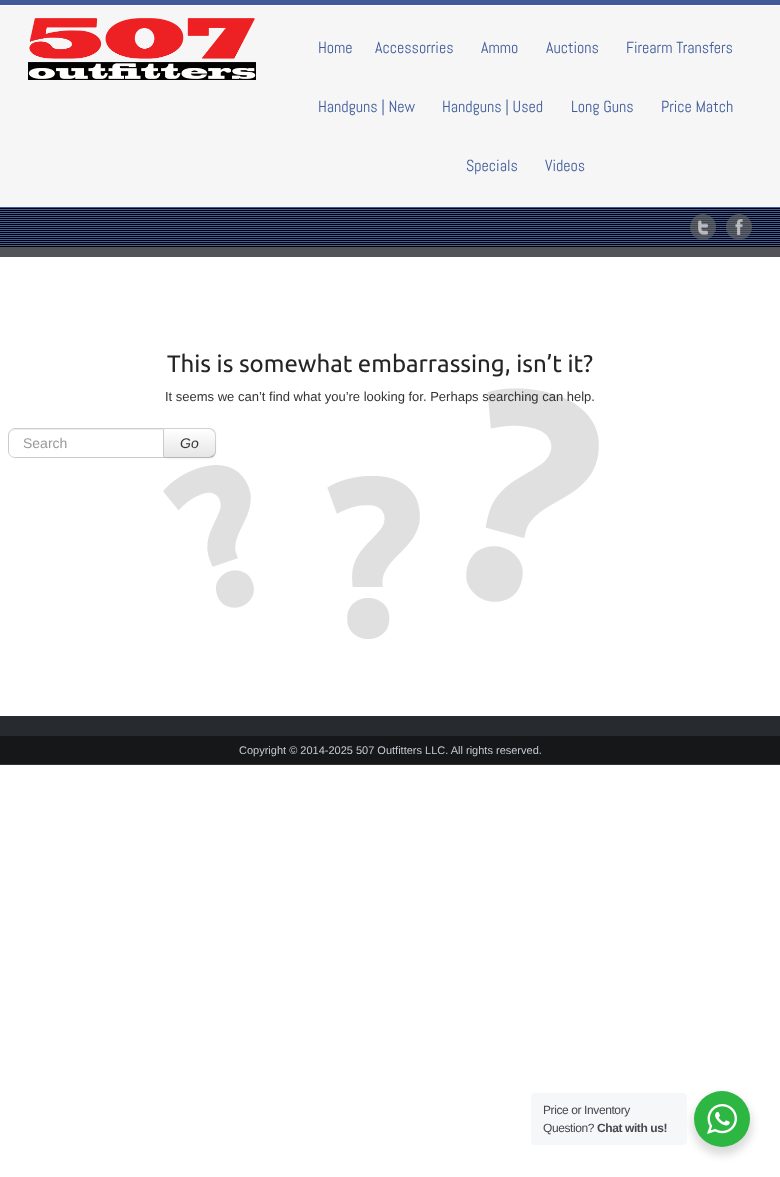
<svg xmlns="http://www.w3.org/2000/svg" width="780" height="1177">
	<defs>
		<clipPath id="clip1"><path d="M163 428H209C213 428 216 431 216 435V451C216 455 213 458 209 458H163Z" /></clipPath>
		<linearGradient id="g1" gradientUnits="userSpaceOnUse" x1="190" y1="429" x2="190" y2="457"><stop offset="0" stop-color="#FFFFFF" /><stop offset="1" stop-color="#E6E6E6" /></linearGradient>
	</defs>
	<rect width="100%" height="100%" fill="#FFFFFF" />
	<rect x="0" y="0" width="780" height="5" fill="#3F5B9A" />
	<rect x="0" y="6" width="780" height="201" fill="#F6F6F6" />
	<image x="28" y="18" width="228" height="62" href="assets/img1.png" />
	<g font-family="Abel" font-size="16" fill="#3F5B9A">
		<text x="318" y="53">Home</text>
		<text x="375" y="53">Accessorries</text>
		<text x="481" y="53">Ammo</text>
		<text x="546" y="53">Auctions</text>
		<text x="626" y="53">Firearm Transfers</text>
		<text x="318" y="112">Handguns | New</text>
		<text x="442" y="112">Handguns | Used</text>
		<text x="571" y="112">Long Guns</text>
		<text x="661" y="112">Price Match</text>
		<text x="466" y="171">Specials</text>
		<text x="545" y="171">Videos</text>
	</g>
	<rect x="0" y="207" width="780" height="39" fill="#3F5B9A" />
	<image x="0" y="208" width="780" height="39" href="assets/img2.png" />
	<image x="690" y="214" width="26" height="26" href="assets/img3.png" />
	<image x="726" y="214" width="26" height="26" href="assets/img4.png" />
	<rect x="0" y="247" width="780" height="10" fill="#525458" />
	<text x="167" y="372" font-family="Ubuntu" font-size="24" fill="#252525">This is somewhat embarrassing, isn’t it?</text>
	<image x="163" y="388" width="436" height="251" href="assets/img5.png" />
	<text x="165" y="401" font-family="Liberation Sans" font-size="13" fill="#333333">It seems we can’t find what you’re looking for. Perhaps searching can help.</text>
	<rect x="163" y="429" width="53" height="30" rx="7" fill="#000000" fill-opacity="0.05" filter="blur(1px)" />
	<path d="M163 428H209C213 428 216 431 216 435V451C216 455 213 458 209 458H163Z" fill="#F5F5F5" />
	<g clip-path="url(#clip1)">
		<rect x="164" y="429" width="52" height="28" fill="url(#g1)" />
	</g>
	<path d="M163 428L164 429H209C210 429 212 430 213 431L214 430C213 429 211 428 209 428Z" fill="#000000" fill-opacity="0.15" />
	<path d="M216 451V435C216 433 215 431 214 430L213 431C214 432 215 433.5 215 435V451C215 452.5 214 454 213 455L214 456C215 455 216 453 216 451Z" fill="#000000" fill-opacity="0.15" />
	<path d="M209 458C211 458 213 457 214 456L213 455C212 456 210 457 209 457H164L163 458Z" fill="#000000" fill-opacity="0.25" />
	<path d="M15 428H164V458H15C11 458 8 455 8 451V435C8 431 11 428 15 428Z" fill="#FFFFFF" />
	<path d="M15 430H163V429H15C12 429 9 432 9 435V436C9 433 12 430 15 430Z" fill="#ECECEC" />
	<path d="M15 428.5H163.5V457.5H15C11.5 457.5 8.5 454.5 8.5 451V435C8.5 431.5 11.5 428.5 15 428.5Z" fill="none" stroke="#CCCCCC" />
	<text x="23" y="448" font-family="Liberation Sans" font-size="14" fill="#999999">Search</text>
	<text x="180" y="448" font-family="Liberation Sans" font-size="14" font-style="italic" fill="#333333">Go</text>
	<rect x="0" y="716" width="780" height="20" fill="#272B30" />
	<rect x="0" y="736" width="780" height="28" fill="#161718" />
	<rect x="0" y="764" width="780" height="1" fill="#333333" />
	<text x="239" y="754" font-family="Liberation Sans" font-size="11" fill="#C4CACF">Copyright © 2014-2025 507 Outfitters LLC. All rights reserved.</text>
	<rect x="692" y="1095" width="60" height="60" rx="30" fill="#000000" fill-opacity="0.14" filter="blur(4px)" />
	<rect x="531" y="1093" width="156" height="52" rx="4" fill="#F5F7F9" />
	<g font-family="Liberation Sans" font-size="12" letter-spacing="-0.4" fill="#43474E">
		<text x="543" y="1114">Price or Inventory</text>
		<text x="543" y="1132">Question?</text>
	</g>
	<text x="597" y="1132" font-family="Liberation Sans" font-size="12" font-weight="700" letter-spacing="-0.4" fill="#43474E">Chat with us!</text>
	<circle cx="722" cy="1119" r="28" fill="#2DB742" />
	<image x="707" y="1104" width="30" height="30" href="assets/img6.png" />
</svg>
